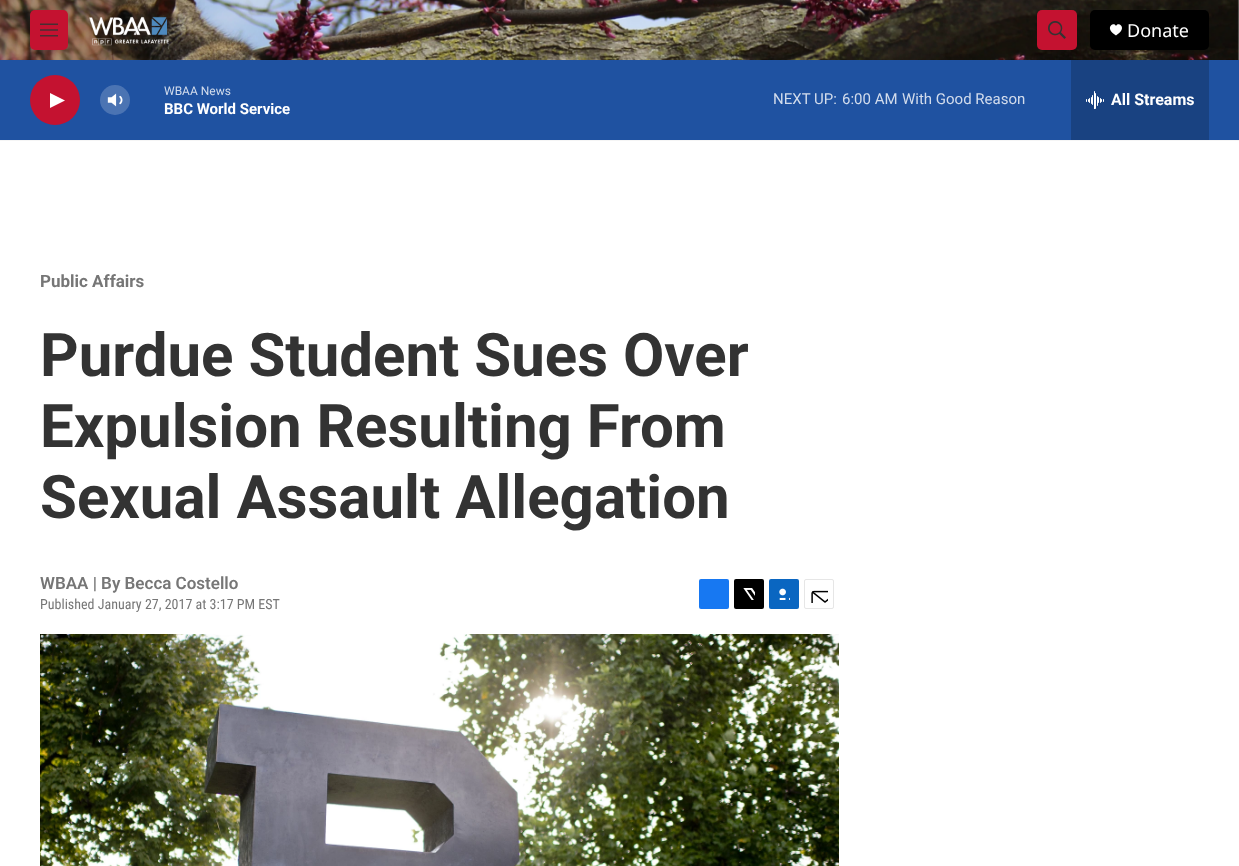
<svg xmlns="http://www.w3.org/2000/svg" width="1239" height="866">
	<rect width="100%" height="100%" fill="#FFFFFF" />
	<rect x="0" y="140" width="1239" height="1" fill="#F5F5F5" />
	<image x="0" y="0" width="1239" height="60" href="assets/img1.png" />
	<rect x="30" y="10" width="38" height="40" rx="5" fill="#C41230" />
	<image x="40" y="23" width="18" height="14" href="assets/img2.png" />
	<image x="89" y="16" width="80" height="30" href="assets/img3.png" />
	<rect x="1037" y="10" width="40" height="40" rx="5" fill="#C41230" />
	<image x="1048" y="21" width="18" height="18" href="assets/img4.png" />
	<rect x="1090" y="10" width="119" height="40" rx="5" fill="#000000" />
	<path d="M1116 26C1114 21 1103.5 28 1116 35.5C1128.5 28 1118 21 1116 26Z" fill="#FFFFFF" />
	<text x="1127" y="37" font-family="Noto Sans" font-size="18" fill="#FFFFFF">Donate</text>
	<rect x="0" y="60" width="1239" height="80" fill="#1F52A1" />
	<circle cx="55" cy="100" r="25" fill="#C41230" />
	<path d="M50 93L65 100.5L50 108Z" fill="#FFFFFF" />
	<image x="107" y="93" width="16" height="14" href="assets/img5.png" />
	<circle cx="115" cy="100" r="15" fill="#FFFFFF" fill-opacity="0.2" />
	<text x="164" y="95" font-family="Roboto" font-size="12" fill="#D2DCEC">WBAA News</text>
	<text x="164" y="114" font-family="'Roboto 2'" font-size="15" font-weight="700" fill="#FFFFFF">BBC World Service</text>
	<g font-family="Roboto" font-size="15" fill="#D2DCEC">
		<text x="773" y="104">NEXT UP:</text>
		<text x="842" y="104">6:00 AM</text>
		<text x="902" y="104">With Good Reason</text>
	</g>
	<rect x="1071" y="60" width="138" height="80" fill="#194281" />
	<image x="1086" y="91" width="18" height="18" href="assets/img6.png" />
	<text x="1111" y="105" font-family="'Roboto 2'" font-size="16" font-weight="700" fill="#FFFFFF">All Streams</text>
	<text x="40" y="287" font-family="Roboto" font-size="17" font-weight="700" fill="#767676">Public Affairs</text>
	<g font-family="Roboto" font-size="60" font-weight="700" fill="#333333">
		<text x="40" y="376">Purdue Student Sues Over</text>
		<text x="40" y="447">Expulsion Resulting From</text>
		<text x="40" y="518">Sexual Assault Allegation</text>
	</g>
	<text x="40" y="589" font-family="Roboto" font-size="17" font-weight="600" fill="#767676">WBAA | By Becca Costello</text>
	<text x="40" y="609" font-family="Roboto Condensed" font-size="14" fill="#767676">Published January 27, 2017 at 3:17 PM EST</text>
	<rect x="699" y="579" width="30" height="30" rx="2" fill="#1778F2" />
	<rect x="734" y="579" width="30" height="30" rx="2" fill="#000000" />
	<image x="743" y="588" width="12" height="12" href="assets/img7.png" />
	<rect x="769" y="579" width="30" height="30" rx="2" fill="#0A66C1" />
	<image x="779" y="588" width="11" height="12" href="assets/img8.png" />
	<rect x="804.5" y="579.5" width="29" height="29" rx="1.5" fill="none" stroke="#E6E6E6" />
	<image x="811" y="590" width="17" height="13" href="assets/img9.png" />
	<image x="40" y="634" width="799" height="232" href="assets/img10.png" />
</svg>
